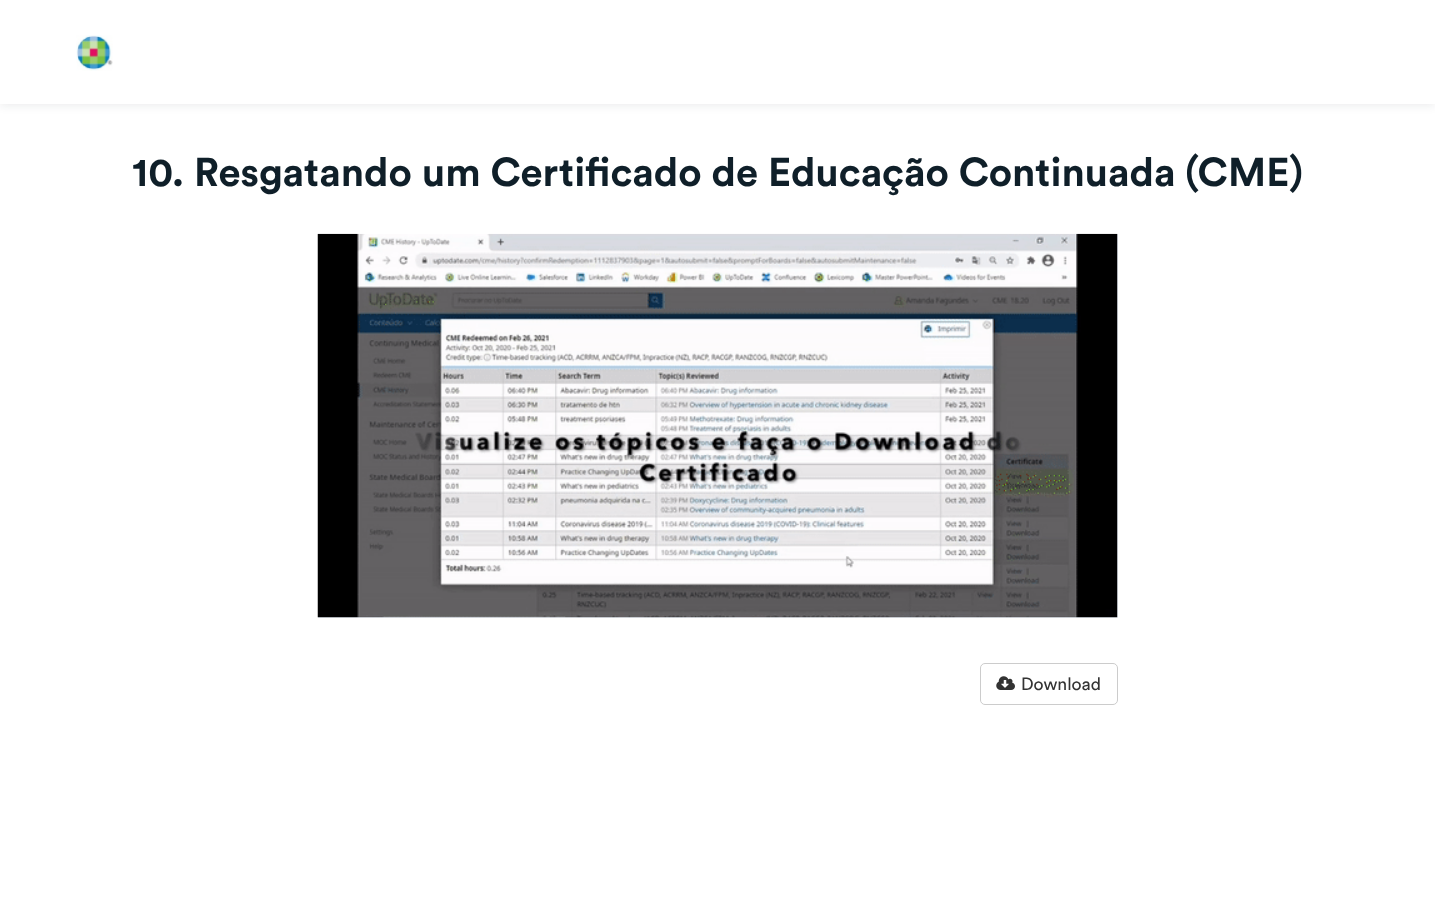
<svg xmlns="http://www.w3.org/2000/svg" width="1435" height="916">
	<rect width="100%" height="100%" fill="#FFFFFF" />
	<rect x="0" y="3" width="1435" height="103" fill="#0F1F29" fill-opacity="0.08" filter="blur(4px)" />
	<rect x="0" y="0" width="1435" height="104" fill="#FFFFFF" />
	<image x="76" y="35" width="37" height="36" href="assets/img1.png" />
	<text x="132" y="186" font-family="Circular" font-size="40" font-weight="700" fill="#0F1F29">10. Resgatando um Certificado de Educação Continuada (CME)</text>
	<rect x="318" y="234" width="800" height="384" fill="#EBF0F7" />
	<image x="317" y="233" width="801" height="385" href="assets/img2.png" />
	<rect x="980.5" y="663.5" width="137" height="41" rx="4.5" fill="none" stroke="#CCCCCC" />
	<image x="996" y="676" width="19" height="14" href="assets/img3.png" />
	<text x="1021" y="690" font-family="Circular" font-size="17.5" fill="#333333">Download</text>
</svg>
